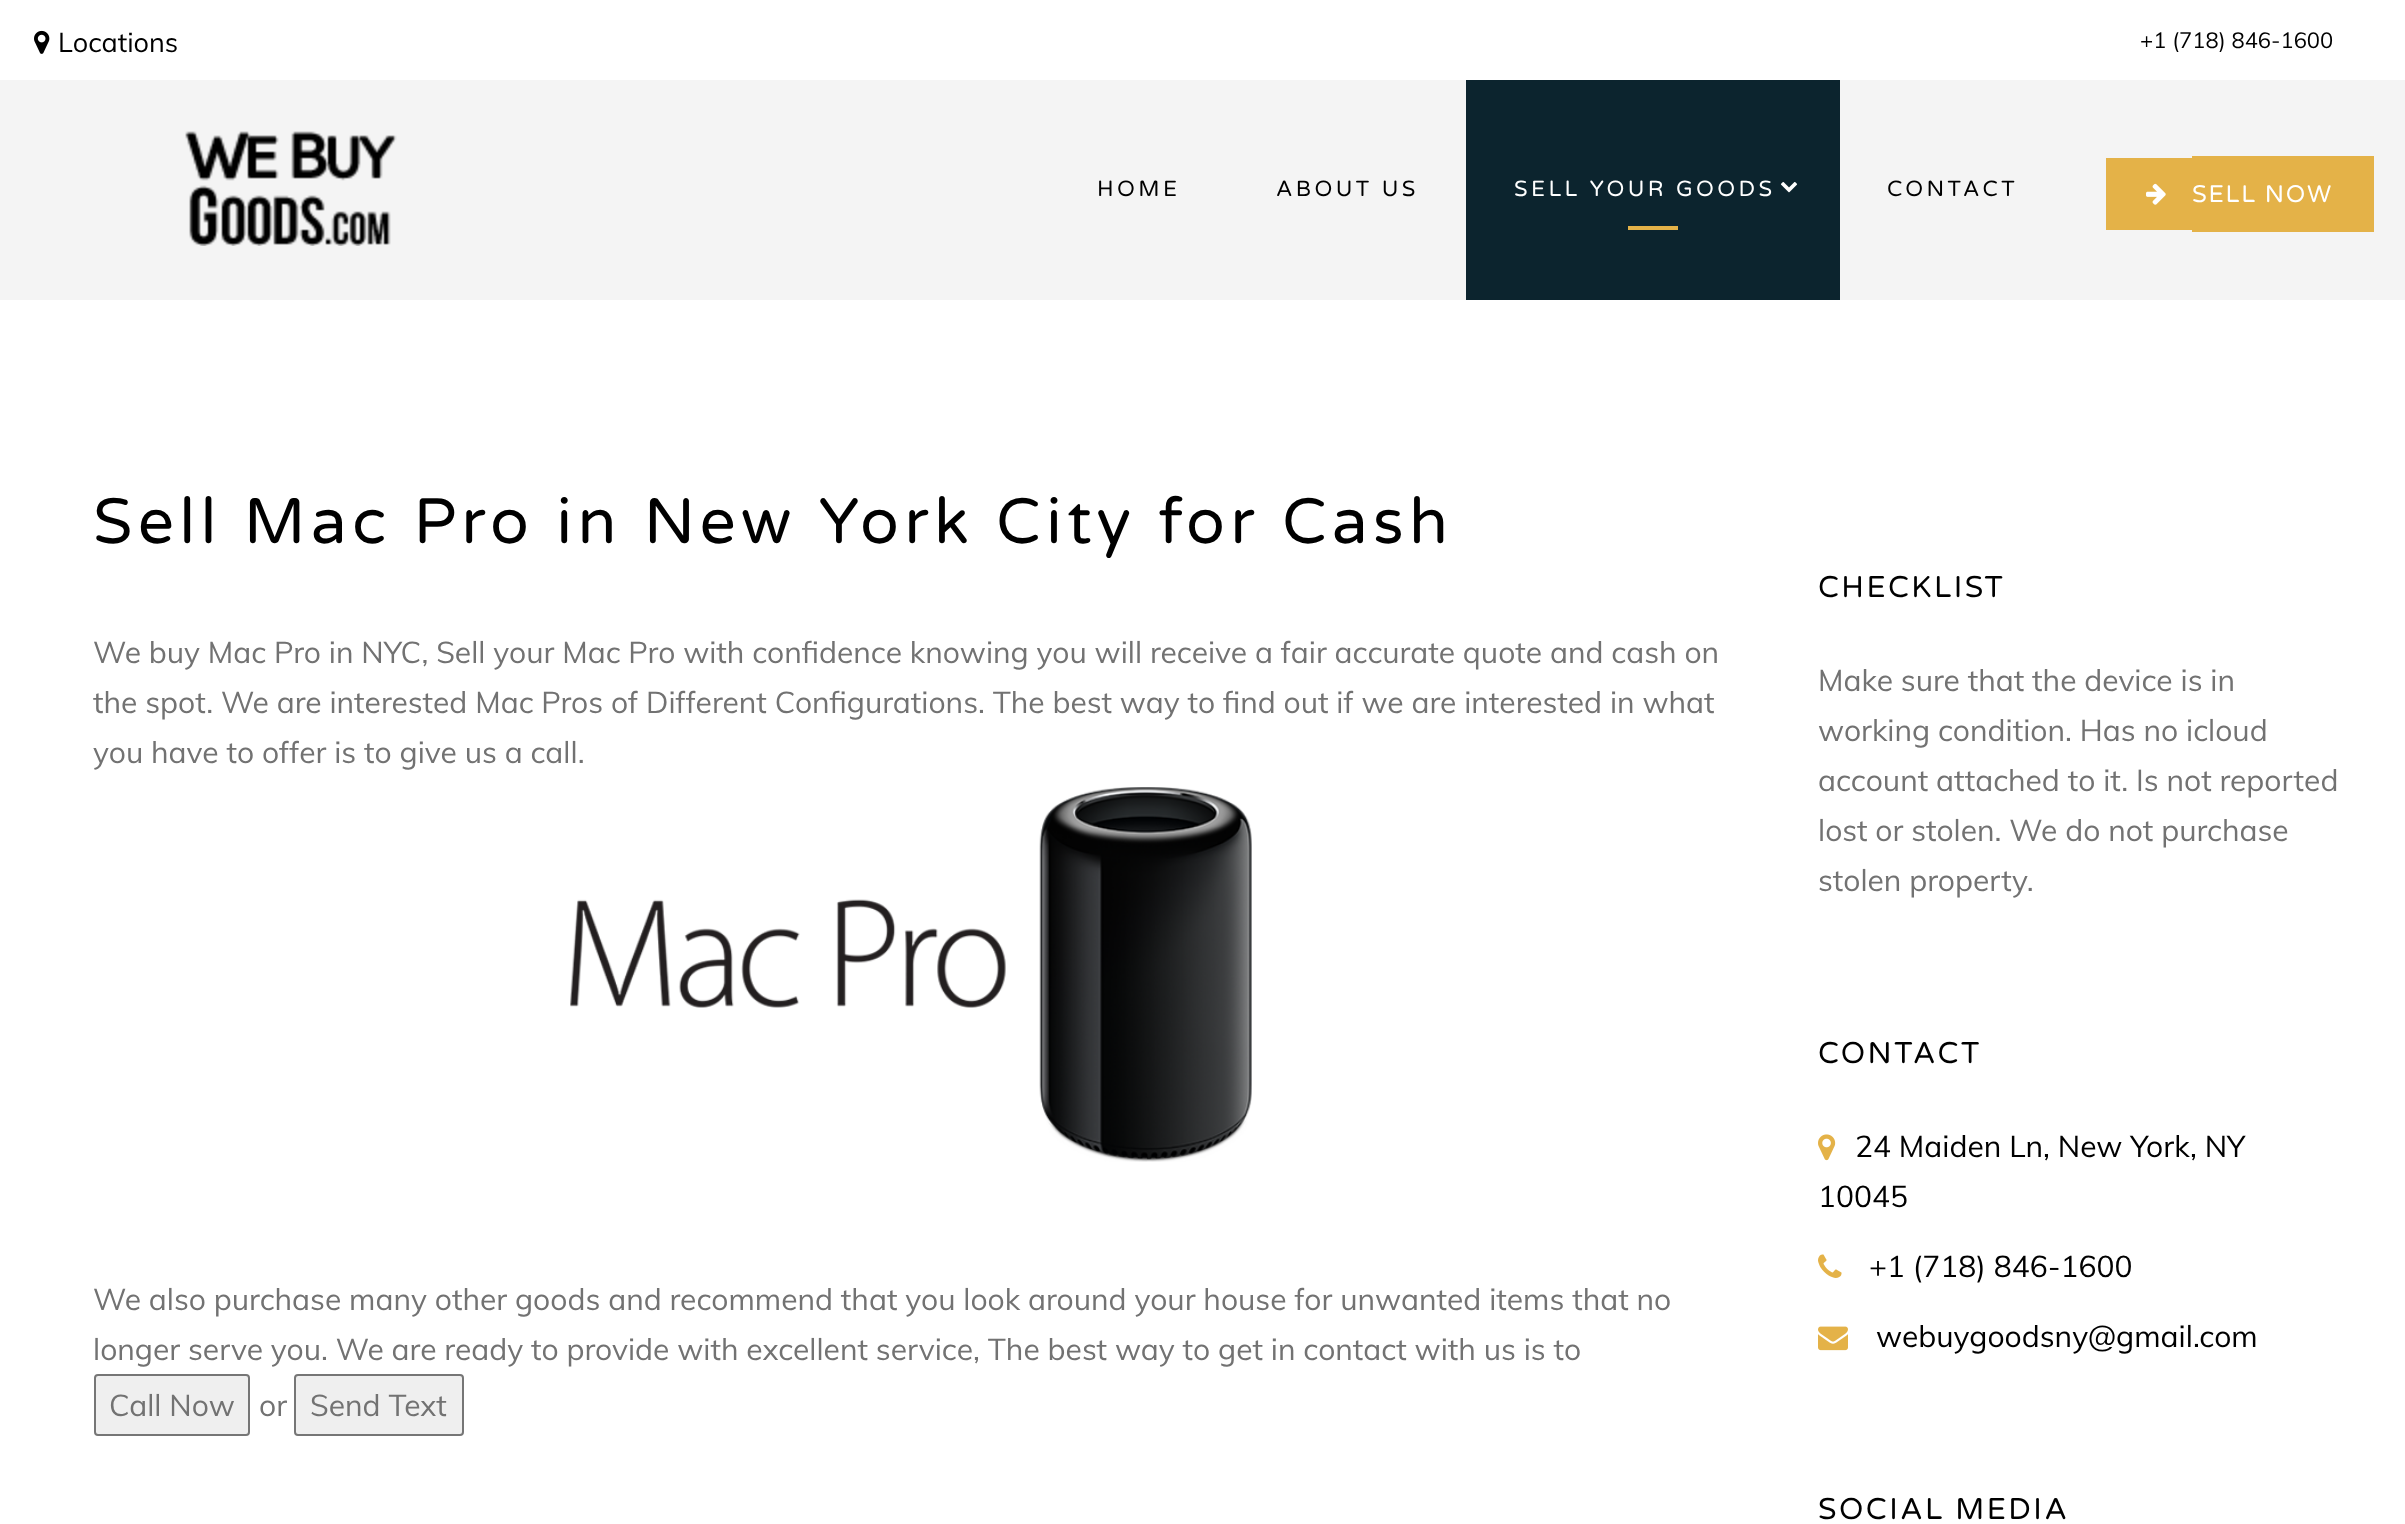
<svg xmlns="http://www.w3.org/2000/svg" width="2405" height="1524">
	<rect width="100%" height="100%" fill="#FFFFFF" />
	<image x="34" y="30" width="16" height="24" href="assets/img1.png" />
	<text x="58" y="52" font-family="Muli" font-size="27" fill="#000000">Locations</text>
	<text x="2140" y="48" font-family="Muli" font-size="22" fill="#000000">+1 (718) 846-1600</text>
	<rect x="0" y="80" width="2405" height="220" fill="#F4F4F4" />
	<image x="185" y="131" width="212" height="115" href="assets/img2.png" />
	<g font-family="Varela Round" font-size="22" letter-spacing="3.4" fill="#000000">
		<text x="1097" y="196">HOME</text>
		<text x="1276" y="196">ABOUT US</text>
	</g>
	<rect x="1466" y="80" width="374" height="220" fill="#0C242E" />
	<text x="1514" y="196" font-family="Varela Round" font-size="22" letter-spacing="3.4" fill="#FFFFFF">SELL YOUR GOODS</text>
	<image x="1780" y="182" width="18" height="11" href="assets/img3.png" />
	<rect x="1628" y="226" width="50" height="4" fill="#E4B248" />
	<text x="1887" y="196" font-family="Varela Round" font-size="22" letter-spacing="3.4" fill="#000000">CONTACT</text>
	<rect x="2106" y="158" width="86" height="72" fill="#E4B248" />
	<rect x="2192" y="156" width="182" height="76" fill="#E4B248" />
	<image x="2146" y="183" width="20" height="22" href="assets/img4.png" />
	<text x="2192" y="202" font-family="Varela Round" font-size="24" letter-spacing="1.75" fill="#FFFFFF">SELL NOW</text>
	<text x="93" y="543" font-family="Varela Round" font-size="64" letter-spacing="5.3" fill="#000000">Sell Mac Pro in New York City for Cash</text>
	<g font-family="Muli" font-size="30" fill="#727272">
		<text x="93" y="663">We buy Mac Pro in NYC, Sell your Mac Pro with confidence knowing you will receive a fair accurate quote and cash on</text>
		<text x="93" y="713">the spot. We are interested Mac Pros of Different Configurations. The best way to find out if we are interested in what</text>
		<text x="93" y="763">you have to offer is to give us a call.</text>
	</g>
	<image x="570" y="787" width="682" height="375" href="assets/img5.png" />
	<g font-family="Muli" font-size="30" fill="#727272">
		<text x="93" y="1310">We also purchase many other goods and recommend that you look around your house for unwanted items that no</text>
		<text x="93" y="1360">longer serve you. We are ready to provide with excellent service, The best way to get in contact with us is to</text>
	</g>
	<rect x="95" y="1375" width="154" height="60" rx="3" fill="#EFEFEF" stroke="#767676" stroke-width="2" />
	<g font-family="Muli" font-size="30" fill="#727272">
		<text x="109" y="1416">Call Now</text>
		<text x="259" y="1416">or</text>
	</g>
	<rect x="295" y="1375" width="168" height="60" rx="3" fill="#EFEFEF" stroke="#767676" stroke-width="2" />
	<text x="310" y="1416" font-family="Muli" font-size="30" fill="#727272">Send Text</text>
	<text x="1818" y="597" font-family="Varela Round" font-size="30" letter-spacing="2.5" fill="#000000">CHECKLIST</text>
	<g font-family="Muli" font-size="30" fill="#727272">
		<text x="1818" y="691">Make sure that the device is in</text>
		<text x="1818" y="741">working condition. Has no icloud</text>
		<text x="1818" y="791">account attached to it. Is not reported</text>
		<text x="1818" y="841">lost or stolen. We do not purchase</text>
		<text x="1818" y="891">stolen property.</text>
	</g>
	<text x="1818" y="1063" font-family="Varela Round" font-size="30" letter-spacing="2.5" fill="#000000">CONTACT</text>
	<image x="1818" y="1134" width="18" height="27" href="assets/img6.png" />
	<g font-family="Muli" font-size="30" fill="#000000">
		<text x="1855" y="1157">24 Maiden Ln, New York, NY</text>
		<text x="1818" y="1207">10045</text>
	</g>
	<image x="1818" y="1254" width="24" height="24" href="assets/img7.png" />
	<text x="1869" y="1277" font-family="Muli" font-size="30" fill="#000000">+1 (718) 846-1600</text>
	<image x="1818" y="1326" width="30" height="25" href="assets/img8.png" />
	<text x="1876" y="1347" font-family="Muli" font-size="30" fill="#000000">webuygoodsny@gmail.com</text>
	<text x="1818" y="1519" font-family="Varela Round" font-size="30" letter-spacing="2.5" fill="#000000">SOCIAL MEDIA</text>
</svg>
